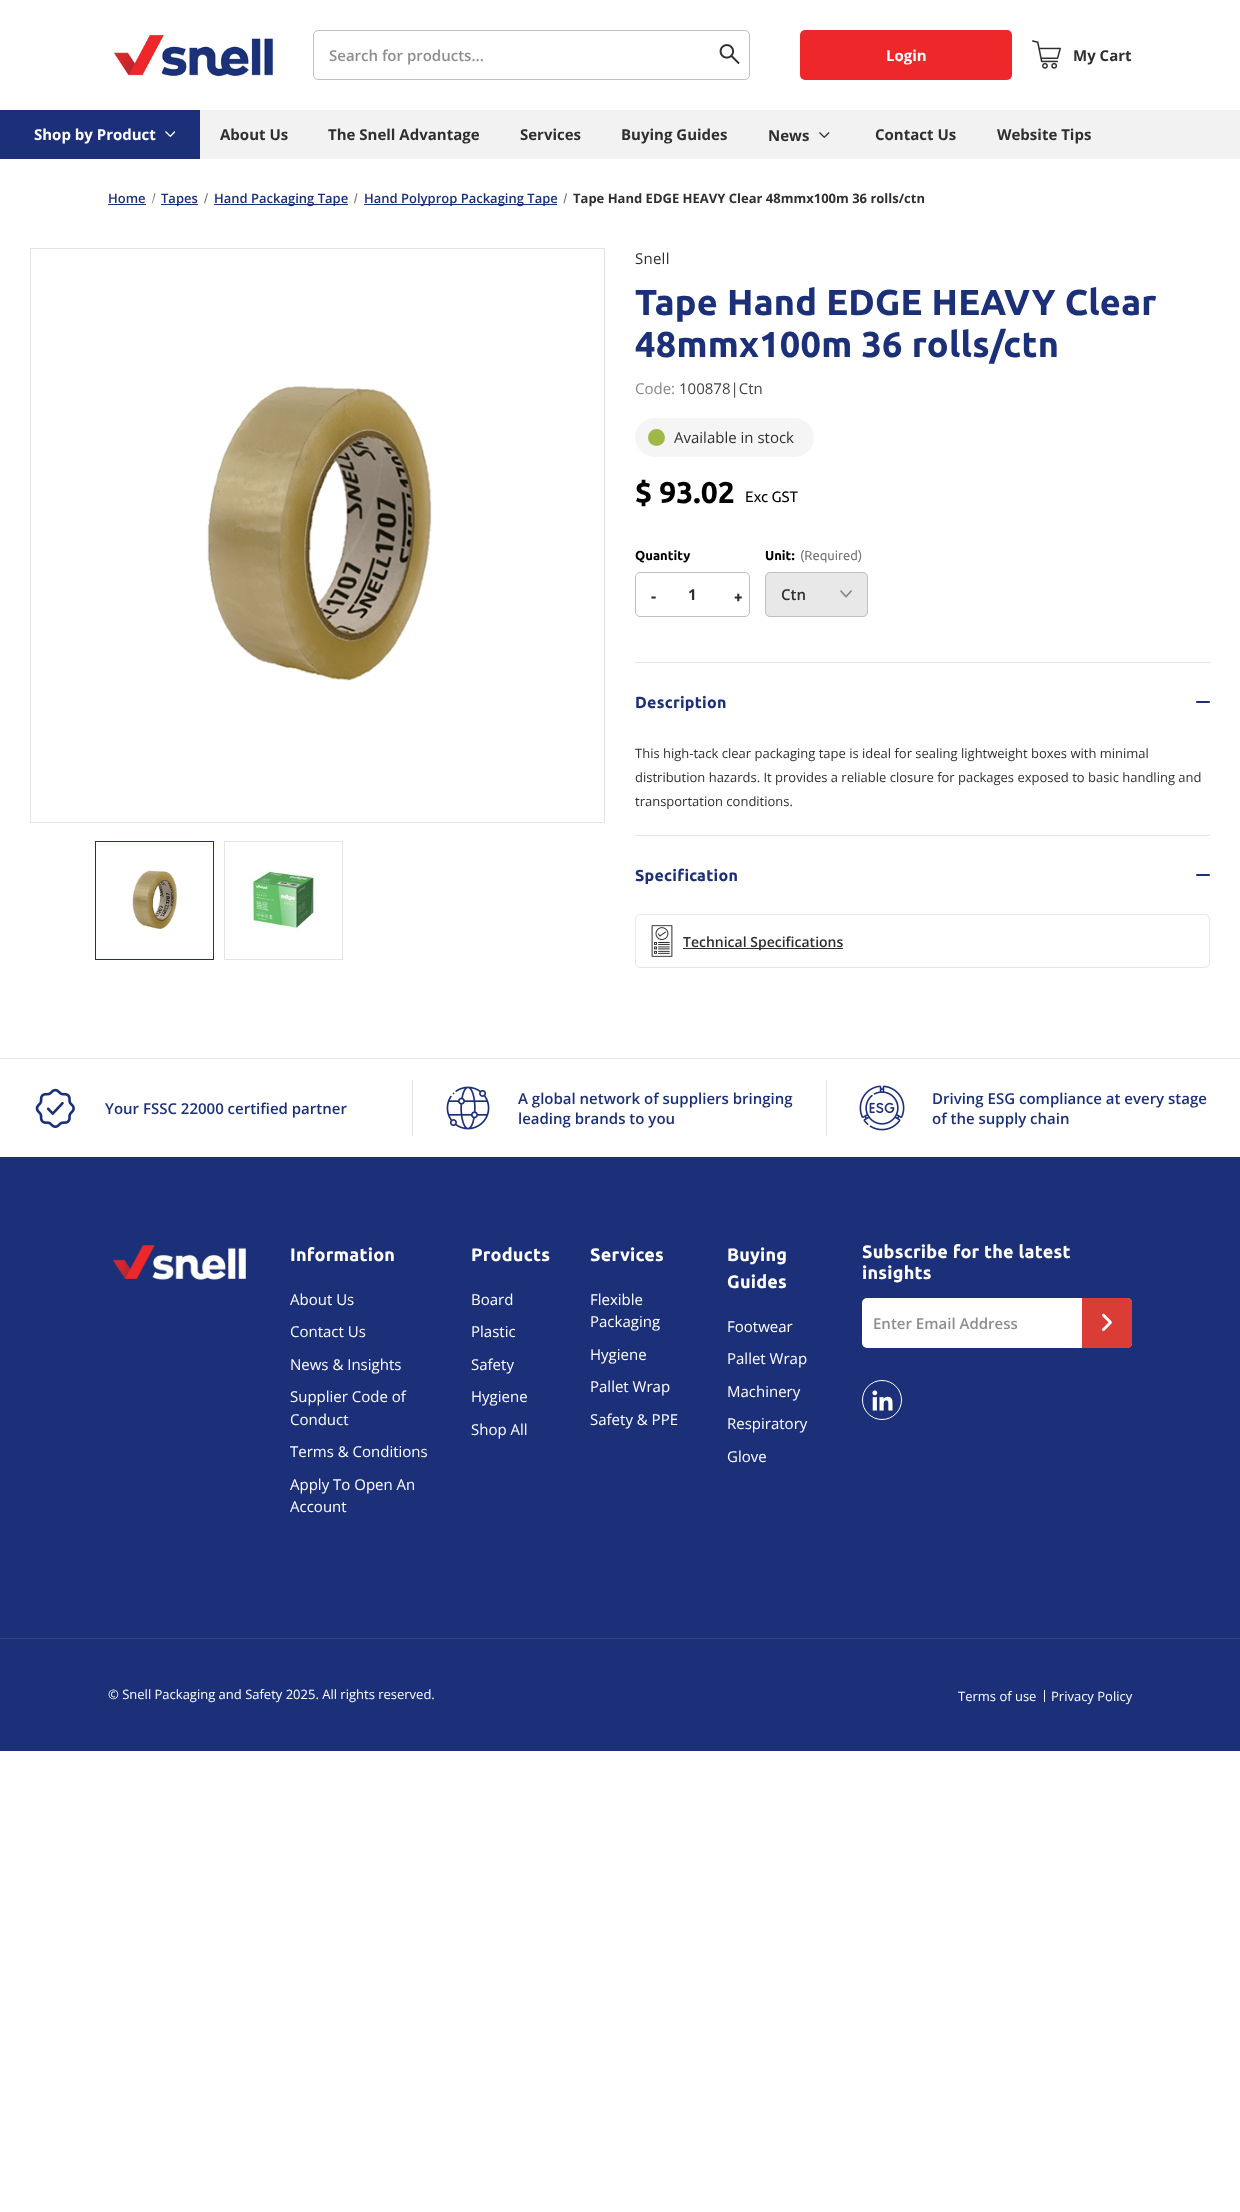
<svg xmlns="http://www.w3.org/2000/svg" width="1240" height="2212">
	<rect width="100%" height="100%" fill="#FFFFFF" />
	<image x="113" y="34" width="161" height="43" href="assets/img1.png" />
	<rect x="313.5" y="30.5" width="436" height="49" rx="4.5" fill="none" stroke="#BFBFBF" />
	<text x="329" y="61" font-family="Open Sans" font-size="15" font-weight="600" fill="#8E8E8E">Search for products...</text>
	<image x="719" y="44" width="21" height="21" href="assets/img2.png" />
	<rect x="800" y="30" width="212" height="50" rx="5" fill="#EE272A" />
	<text x="886" y="61" font-family="Open Sans" font-size="15" font-weight="700" fill="#FFFFFF">Login</text>
	<image x="1032" y="40" width="29" height="29" href="assets/img3.png" />
	<text x="1073" y="61" font-family="Open Sans" font-size="15" font-weight="700" fill="#2F2F2F">My Cart</text>
	<rect x="200" y="110" width="1040" height="49" fill="#F2F2F2" />
	<rect x="0" y="110" width="200" height="49" fill="#1B3079" />
	<text x="34" y="140" font-family="Open Sans" font-size="15" font-weight="700" fill="#FFFFFF">Shop by Product</text>
	<image x="165" y="131" width="10" height="6" href="assets/img4.png" />
	<g font-family="Open Sans" font-size="15" font-weight="700" fill="#2F2F2F">
		<text x="220" y="140">About Us</text>
		<text x="328" y="140">The Snell Advantage</text>
		<text x="520" y="140">Services</text>
		<text x="621" y="140">Buying Guides</text>
		<text x="768" y="141">News</text>
	</g>
	<image x="819" y="132" width="11" height="6" href="assets/img5.png" />
	<g font-family="Open Sans" font-size="15" font-weight="700" fill="#2F2F2F">
		<text x="875" y="140">Contact Us</text>
		<text x="997" y="140">Website Tips</text>
	</g>
	<text x="108" y="203" font-family="Open Sans" font-size="13" font-weight="600" fill="#1B3079">Home</text>
	<rect x="108" y="204" width="38" height="1" fill="#1B3079" />
	<rect x="161" y="204" width="37" height="1" fill="#1B3079" />
	<text x="161" y="203" font-family="Open Sans" font-size="13" font-weight="600" fill="#1B3079">Tapes</text>
	<path d="M154.5 193L155.5 193.5L152.5 203.5L152 203ZM207 193L208 193.5L205 203.5L204 203Z" fill="#757575" />
	<rect x="214" y="204" width="134" height="1" fill="#1B3079" />
	<text x="214" y="203" font-family="Open Sans" font-size="13" font-weight="600" fill="#1B3079">Hand Packaging Tape</text>
	<path d="M356.5 193L357.5 193.5L355 203.5L354 203Z" fill="#757575" />
	<rect x="364" y="204" width="193" height="1" fill="#1B3079" />
	<text x="364" y="203" font-family="Open Sans" font-size="13" font-weight="600" fill="#1B3079">Hand Polyprop Packaging Tape</text>
	<path d="M566 193L567 193.5L564.5 203.5L563.5 203Z" fill="#757575" />
	<text x="573" y="203" font-family="Open Sans" font-size="13" font-weight="700" fill="#2F2F2F">Tape Hand EDGE HEAVY Clear 48mmx100m 36 rolls/ctn</text>
	<rect x="30.5" y="248.5" width="574" height="574" fill="none" stroke="#E4E4E4" />
	<image x="207" y="386" width="225" height="295" href="assets/img6.png" />
	<rect x="95.5" y="841.5" width="118" height="118" fill="none" stroke="#1B3079" />
	<image x="132" y="870" width="45" height="59" href="assets/img7.png" />
	<rect x="224.5" y="841.5" width="118" height="118" fill="none" stroke="#E4E4E4" />
	<image x="250" y="869" width="66" height="61" href="assets/img8.png" />
	<text x="635" y="264" font-family="Open Sans" font-size="15" letter-spacing="0.25" fill="#2F2F2F">Snell</text>
	<g font-family="Ubuntu" font-size="36" font-weight="700" letter-spacing="0.25" fill="#1B3079">
		<text x="635" y="315">Tape Hand EDGE HEAVY Clear</text>
		<text x="635" y="357">48mmx100m 36 rolls/ctn</text>
	</g>
	<text x="635" y="394" font-family="Open Sans" font-size="15" fill="#888888">Code:</text>
	<text x="679" y="394" font-family="Open Sans" font-size="15" fill="#444444">100878|Ctn</text>
	<rect x="635" y="418" width="179" height="39" rx="19.5" fill="#F5F5F5" />
	<circle cx="656.5" cy="437.5" r="8.5" fill="#A0B946" />
	<text x="674" y="443" font-family="Open Sans" font-size="15" fill="#2F2F2F">Available in stock</text>
	<text x="635" y="503" font-family="Ubuntu" font-size="30" font-weight="700" fill="#000000">$ 93.02</text>
	<text x="745" y="502" font-family="Ubuntu" font-size="15" fill="#000000">Exc GST</text>
	<text x="635" y="560" font-family="Ubuntu" font-size="13" font-weight="700" fill="#000000">Quantity</text>
	<rect x="635.5" y="572.5" width="114" height="44" rx="4.5" fill="none" stroke="#BFBFBF" />
	<text x="651" y="602" font-family="Ubuntu" font-size="15" font-weight="700" fill="#2F2F2F">-</text>
	<text x="688" y="600" font-family="Open Sans" font-size="15" font-weight="700" fill="#2F2F2F">1</text>
	<text x="734" y="602" font-family="Ubuntu" font-size="15" font-weight="700" fill="#2F2F2F">+</text>
	<text x="765" y="560" font-family="Ubuntu" font-size="13" font-weight="700" fill="#000000">Unit:</text>
	<text x="800" y="560" font-family="Ubuntu" font-size="13" fill="#757575">(Required)</text>
	<rect x="765" y="572" width="103" height="45" rx="5" fill="#E8E8E8" />
	<image x="840" y="590" width="12" height="8" href="assets/img9.png" />
	<rect x="765.5" y="572.5" width="102" height="44" rx="4.5" fill="none" stroke="#BFBFBF" />
	<text x="781" y="600" font-family="Open Sans" font-size="15" font-weight="600" fill="#2F2F2F">Ctn</text>
	<rect x="635" y="662" width="575" height="1" fill="#E4E4E4" />
	<text x="635" y="708" font-family="Ubuntu" font-size="16" font-weight="700" letter-spacing="0.25" fill="#1B3079">Description</text>
	<rect x="1196" y="701" width="14" height="2" rx="1" fill="#1B3079" />
	<g font-family="Open Sans" font-size="13" fill="#2F2F2F">
		<text x="635" y="758">This high-tack clear packaging tape is ideal for sealing lightweight boxes with minimal</text>
		<text x="635" y="782">distribution hazards. It provides a reliable closure for packages exposed to basic handling and</text>
		<text x="635" y="806">transportation conditions.</text>
	</g>
	<rect x="635" y="835" width="575" height="1" fill="#E4E4E4" />
	<text x="635" y="881" font-family="Ubuntu" font-size="16" font-weight="700" letter-spacing="0.25" fill="#1B3079">Specification</text>
	<rect x="1196" y="874" width="14" height="2" rx="1" fill="#1B3079" />
	<rect x="635.5" y="914.5" width="574" height="53" rx="4.5" fill="none" stroke="#E7E7E7" />
	<image x="651" y="925" width="22" height="32" href="assets/img10.png" />
	<rect x="683" y="948" width="160" height="1" fill="#2F2F2F" />
	<text x="683" y="947" font-family="Open Sans" font-size="14" font-weight="600" fill="#2F2F2F">Technical Specifications</text>
	<rect x="0" y="1058" width="1240" height="1" fill="#E4E4E4" />
	<rect x="412" y="1080" width="1" height="56" fill="#E5E5E5" />
	<image x="35" y="1088" width="40" height="40" href="assets/img11.png" />
	<text x="105" y="1114" font-family="Open Sans" font-size="15" font-weight="600" fill="#1B3079">Your FSSC 22000 certified partner</text>
	<rect x="826" y="1080" width="1" height="56" fill="#E5E5E5" />
	<image x="446" y="1086" width="44" height="44" href="assets/img12.png" />
	<g font-family="Open Sans" font-size="15" font-weight="600" fill="#1B3079">
		<text x="518" y="1104">A global network of suppliers bringing</text>
		<text x="518" y="1124">leading brands to you</text>
	</g>
	<image x="859" y="1085" width="46" height="46" href="assets/img13.png" />
	<g font-family="Open Sans" font-size="15" font-weight="600" fill="#1B3079">
		<text x="932" y="1104">Driving ESG compliance at every stage</text>
		<text x="932" y="1124">of the supply chain</text>
	</g>
	<rect x="0" y="1157" width="1240" height="594" fill="#1B3079" />
	<image x="113" y="1245" width="133" height="35" href="assets/img14.png" />
	<text x="290" y="1261" font-family="Ubuntu" font-size="18" font-weight="700" letter-spacing="0.25" fill="#FFFFFF">Information</text>
	<g font-family="Open Sans" font-size="15" fill="#FFFFFF">
		<text x="290" y="1305">About Us</text>
		<text x="290" y="1337">Contact Us</text>
		<text x="290" y="1370">News &amp; Insights</text>
		<text x="290" y="1402">Supplier Code of</text>
		<text x="290" y="1425">Conduct</text>
		<text x="290" y="1457">Terms &amp; Conditions</text>
		<text x="290" y="1490">Apply To Open An</text>
		<text x="290" y="1512">Account</text>
	</g>
	<text x="471" y="1261" font-family="Ubuntu" font-size="18" font-weight="700" letter-spacing="0.25" fill="#FFFFFF">Products</text>
	<g font-family="Open Sans" font-size="15" fill="#FFFFFF">
		<text x="471" y="1305">Board</text>
		<text x="471" y="1337">Plastic</text>
		<text x="471" y="1370">Safety</text>
		<text x="471" y="1402">Hygiene</text>
		<text x="471" y="1435">Shop All</text>
	</g>
	<text x="590" y="1261" font-family="Ubuntu" font-size="18" font-weight="700" letter-spacing="0.25" fill="#FFFFFF">Services</text>
	<g font-family="Open Sans" font-size="15" fill="#FFFFFF">
		<text x="590" y="1305">Flexible</text>
		<text x="590" y="1327">Packaging</text>
		<text x="590" y="1360">Hygiene</text>
		<text x="590" y="1392">Pallet Wrap</text>
		<text x="590" y="1425">Safety &amp; PPE</text>
	</g>
	<g font-family="Ubuntu" font-size="18" font-weight="700" letter-spacing="0.25" fill="#FFFFFF">
		<text x="727" y="1261">Buying</text>
		<text x="727" y="1288">Guides</text>
	</g>
	<g font-family="Open Sans" font-size="15" fill="#FFFFFF">
		<text x="727" y="1332">Footwear</text>
		<text x="727" y="1364">Pallet Wrap</text>
		<text x="727" y="1397">Machinery</text>
		<text x="727" y="1429">Respiratory</text>
		<text x="727" y="1462">Glove</text>
	</g>
	<g font-family="Ubuntu" font-size="18" font-weight="700" letter-spacing="0.25" fill="#FFFFFF">
		<text x="862" y="1258">Subscribe for the latest</text>
		<text x="862" y="1279">insights</text>
	</g>
	<rect x="862" y="1298" width="270" height="50" rx="5" fill="#FFFFFF" />
	<text x="873" y="1329" font-family="Open Sans" font-size="15" font-weight="600" fill="#8E8E8E">Enter Email Address</text>
	<path d="M1082 1298H1127C1130 1298 1132 1300 1132 1303V1343C1132 1346 1130 1348 1127 1348H1082Z" fill="#DA3D36" />
	<image x="1102" y="1313" width="10" height="19" href="assets/img15.png" />
	<circle cx="882" cy="1400" r="19.5" fill="none" stroke="#FFFFFF" />
	<image x="872" y="1390" width="21" height="21" href="assets/img16.png" />
	<rect x="0" y="1638" width="1240" height="1" fill="#324586" />
	<g font-family="Open Sans" font-size="13" fill="#FFFFFF">
		<text x="108" y="1699">© Snell Packaging and Safety 2025. All rights reserved.</text>
		<text x="958" y="1701">Terms of use</text>
	</g>
	<rect x="1044" y="1690" width="1" height="12" fill="#FFFFFF" />
	<text x="1051" y="1701" font-family="Open Sans" font-size="13" fill="#FFFFFF">Privacy Policy</text>
</svg>
